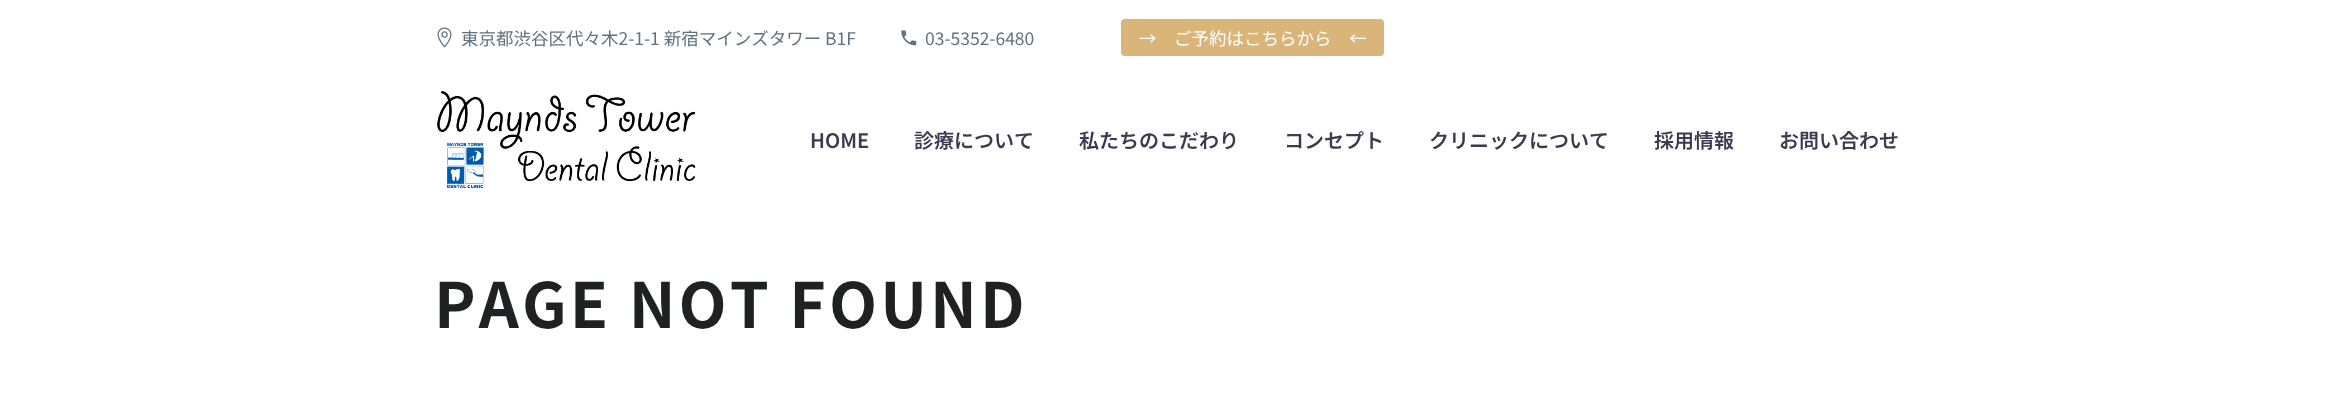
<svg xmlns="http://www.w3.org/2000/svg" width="2331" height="396">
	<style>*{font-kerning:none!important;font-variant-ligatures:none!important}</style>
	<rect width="100%" height="100%" fill="#FFFFFF" />
	<image x="437" y="27" width="15" height="21" href="assets/img1.png" />
	<text x="461" y="45" font-family="Noto Sans JP" font-size="17.5" fill="#5F727F">東京都渋谷区代々木2-1-1 新宿マインズタワー B1F</text>
	<image x="901" y="30" width="16" height="16" href="assets/img2.png" />
	<text x="925" y="45" font-family="Noto Sans JP" font-size="17.5" fill="#5F727F">03-5352-6480</text>
	<rect x="1121" y="19" width="263" height="37" rx="4" fill="#DAB57A" />
	<text x="1139" y="45" font-family="Noto Sans JP" font-size="17.5" fill="#FFFFFF">→　ご予約はこちらから　←</text>
	<image x="437" y="91" width="259" height="98" href="assets/img3.png" />
	<g font-family="Noto Sans JP" font-size="20" font-weight="600" fill="#3C3950">
		<text x="810" y="148">HOME</text>
		<text x="914" y="148">診療について</text>
		<text x="1079" y="148">私たちのこだわり</text>
		<text x="1284" y="148">コンセプト</text>
		<text x="1429" y="148">クリニックについて</text>
		<text x="1654" y="148">採用情報</text>
		<text x="1779" y="148">お問い合わせ</text>
	</g>
	<text x="434" y="328" font-family="Noto Sans JP" font-size="62.5" font-weight="700" letter-spacing="3.1" fill="#1E2222">PAGE NOT FOUND</text>
</svg>
